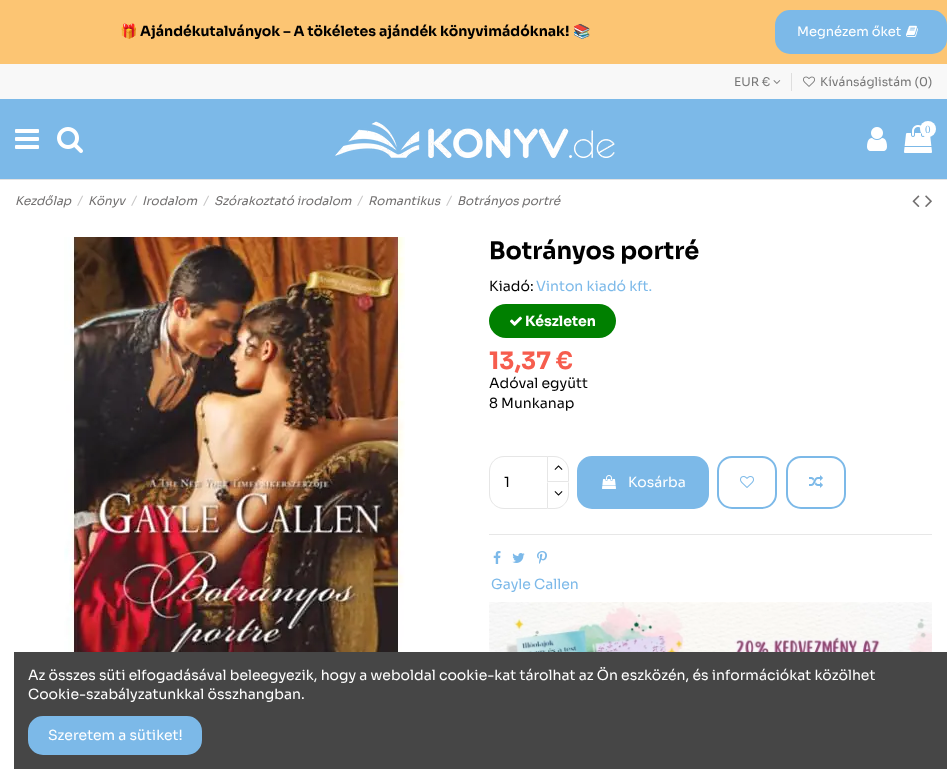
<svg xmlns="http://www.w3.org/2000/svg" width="947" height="783">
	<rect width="100%" height="100%" fill="#FFFFFF" />
	<rect x="0" y="99" width="947" height="80" fill="#7CB9E8" />
	<rect x="0" y="0" width="947" height="64" fill="#FCC573" />
	<text x="120" y="36" font-family="Noto Color Emoji" font-size="14" font-weight="700" fill="#000000">🎁</text>
	<text x="140" y="36" font-family="Sora" font-size="14" font-weight="700" fill="#000000">Ajándékutalványok – A tökéletes ajándék könyvimádóknak!</text>
	<text x="573" y="36" font-family="Noto Color Emoji" font-size="14" font-weight="700" fill="#000000">📚</text>
	<rect x="776" y="11" width="170" height="42" rx="14" fill="#7CB9E8" stroke="#7CB9E8" stroke-width="2" />
	<text x="797" y="36" font-family="Sora" font-size="13" fill="#FFFFFF">Megnézem őket</text>
	<image x="906" y="25" width="12" height="12" href="assets/img1.png" />
	<rect x="0" y="64" width="947" height="35" fill="#F8F8F8" />
	<text x="734" y="86" font-family="Sora" font-size="12" fill="#777777">EUR €</text>
	<image x="773" y="80" width="8" height="4" href="assets/img2.png" />
	<rect x="791" y="73" width="1" height="18" fill="#DEDEDE" />
	<image x="803" y="76" width="12" height="11" href="assets/img3.png" />
	<text x="820" y="86" font-family="Sora" font-size="12" fill="#777777">Kívánságlistám (0)</text>
	<rect x="0" y="179" width="947" height="1" fill="#E3E3E3" />
	<image x="15" y="129" width="24" height="20" href="assets/img4.png" />
	<image x="57" y="127" width="26" height="26" href="assets/img5.png" />
	<image x="335" y="121" width="280" height="37" href="assets/img6.png" />
	<image x="867" y="127" width="20" height="24" href="assets/img7.png" />
	<image x="904" y="125" width="28" height="28" href="assets/img8.png" />
	<circle cx="928" cy="129" r="8" fill="#FFFFFF" />
	<text x="925" y="133" font-family="Liberation Serif" font-size="11" fill="#7CB9E9">0</text>
	<text x="15" y="205" font-family="Sora" font-size="12" font-style="italic" fill="#716F6F">Kezdőlap</text>
	<text x="77" y="205" font-family="Sora" font-size="12" font-style="italic" fill="#C6C5C5">/</text>
	<text x="88" y="205" font-family="Sora" font-size="12" font-style="italic" fill="#716F6F">Könyv</text>
	<text x="131" y="205" font-family="Sora" font-size="12" font-style="italic" fill="#C6C5C5">/</text>
	<text x="142" y="205" font-family="Sora" font-size="12" font-style="italic" fill="#716F6F">Irodalom</text>
	<text x="203" y="205" font-family="Sora" font-size="12" font-style="italic" fill="#C6C5C5">/</text>
	<text x="214" y="205" font-family="Sora" font-size="12" font-style="italic" fill="#716F6F">Szórakoztató irodalom</text>
	<text x="357" y="205" font-family="Sora" font-size="12" font-style="italic" fill="#C6C5C5">/</text>
	<text x="368" y="205" font-family="Sora" font-size="12" font-style="italic" fill="#716F6F">Romantikus</text>
	<text x="446" y="205" font-family="Sora" font-size="12" font-style="italic" fill="#C6C5C5">/</text>
	<text x="457" y="205" font-family="Sora" font-size="12" font-style="italic" fill="#716F6F">Botrányos portré</text>
	<image x="912" y="195" width="8" height="12" href="assets/img9.png" />
	<image x="925" y="195" width="7" height="12" href="assets/img10.png" />
	<image x="64" y="237" width="341" height="415" href="assets/img11.png" />
	<text x="489" y="259" font-family="Sora" font-size="24" font-weight="700" fill="#000000">Botrányos portré</text>
	<text x="489" y="291" font-family="Sora" font-size="14" fill="#000000">Kiadó:</text>
	<text x="536" y="291" font-family="Sora" font-size="14" fill="#7CB9E9">Vinton kiadó kft.</text>
	<rect x="489" y="304" width="127" height="34" rx="17" fill="#008000" />
	<image x="510" y="316" width="12" height="10" href="assets/img12.png" />
	<text x="525" y="326" font-family="Sora" font-size="14" font-weight="700" fill="#FFFFFF">Készleten</text>
	<text x="489" y="369" font-family="Sora" font-size="24" font-weight="700" fill="#F65D4E">13,37 €</text>
	<g font-family="Sora" font-size="14" fill="#000000">
		<text x="489" y="388">Adóval együtt</text>
		<text x="489" y="408">8 Munkanap</text>
	</g>
	<path d="M504 456.5H547.5V508.5H504C496 508.5 489.5 502 489.5 494V471C489.5 463 496 456.5 504 456.5Z" fill="none" stroke="#E6E6E6" />
	<text x="504" y="487" font-family="Sora" font-size="14" fill="#000000">1</text>
	<path d="M547.5 456.5H554C562 456.5 568.5 463 568.5 471V481.5H547.5Z" fill="#FFFFFF" stroke="#E6E6E6" />
	<image x="554" y="465" width="9" height="5" href="assets/img13.png" />
	<path d="M547 482H569V494C569 502.5 562.5 509 554 509H547Z" fill="#FFFFFF" />
	<path d="M569 482L568 483C568 490 569.5 498.5 564 504L564.5 504.5C567.5 502 569 498 569 494Z" fill="#E6E6E6" />
	<path d="M554 509C558 509 562 507.5 564.5 504.5L564 504C559.5 508.5 554 508 548 508L547 509Z" fill="#E6E6E6" />
	<path d="M548 483L547 482V509L548 508Z" fill="#E6E6E6" />
	<image x="554" y="491" width="9" height="5" href="assets/img14.png" />
	<rect x="578" y="457" width="130" height="51" rx="14" fill="#7CB9E8" stroke="#7CB9E8" stroke-width="2" />
	<image x="602" y="475" width="14" height="14" href="assets/img15.png" />
	<text x="628" y="487" font-family="Sora" font-size="14" fill="#FFFFFF">Kosárba</text>
	<rect x="718" y="457" width="58" height="51" rx="14" fill="none" stroke="#7CB9E8" stroke-width="2" />
	<image x="740" y="476" width="14" height="12" href="assets/img16.png" />
	<rect x="787" y="457" width="58" height="51" rx="14" fill="none" stroke="#7CB9E8" stroke-width="2" />
	<image x="809" y="475" width="14" height="13" href="assets/img17.png" />
	<rect x="489" y="534" width="443" height="1" fill="#E7E7E7" />
	<image x="493" y="551" width="8" height="13" href="assets/img18.png" />
	<image x="512" y="553" width="13" height="10" href="assets/img19.png" />
	<image x="537" y="551" width="10" height="13" href="assets/img20.png" />
	<text x="491" y="589" font-family="Sora" font-size="14" fill="#7CB9E9">Gayle Callen</text>
	<image x="489" y="602" width="443" height="50" href="assets/img21.png" />
	<rect x="14" y="652" width="933" height="117" fill="#464646" />
	<g font-family="Sora" font-size="14" fill="#FFFFFF">
		<text x="28" y="680">Az összes süti elfogadásával beleegyezik, hogy a weboldal cookie-kat tárolhat az Ön eszközén, és információkat közölhet</text>
		<text x="28" y="699">Cookie-szabályzatunkkal összhangban.</text>
	</g>
	<rect x="29" y="717" width="172" height="37" rx="14" fill="#7CB9E8" stroke="#7CB9E8" stroke-width="2" />
	<text x="48" y="740" font-family="Sora" font-size="14" fill="#FFFFFF">Szeretem a sütiket!</text>
</svg>
